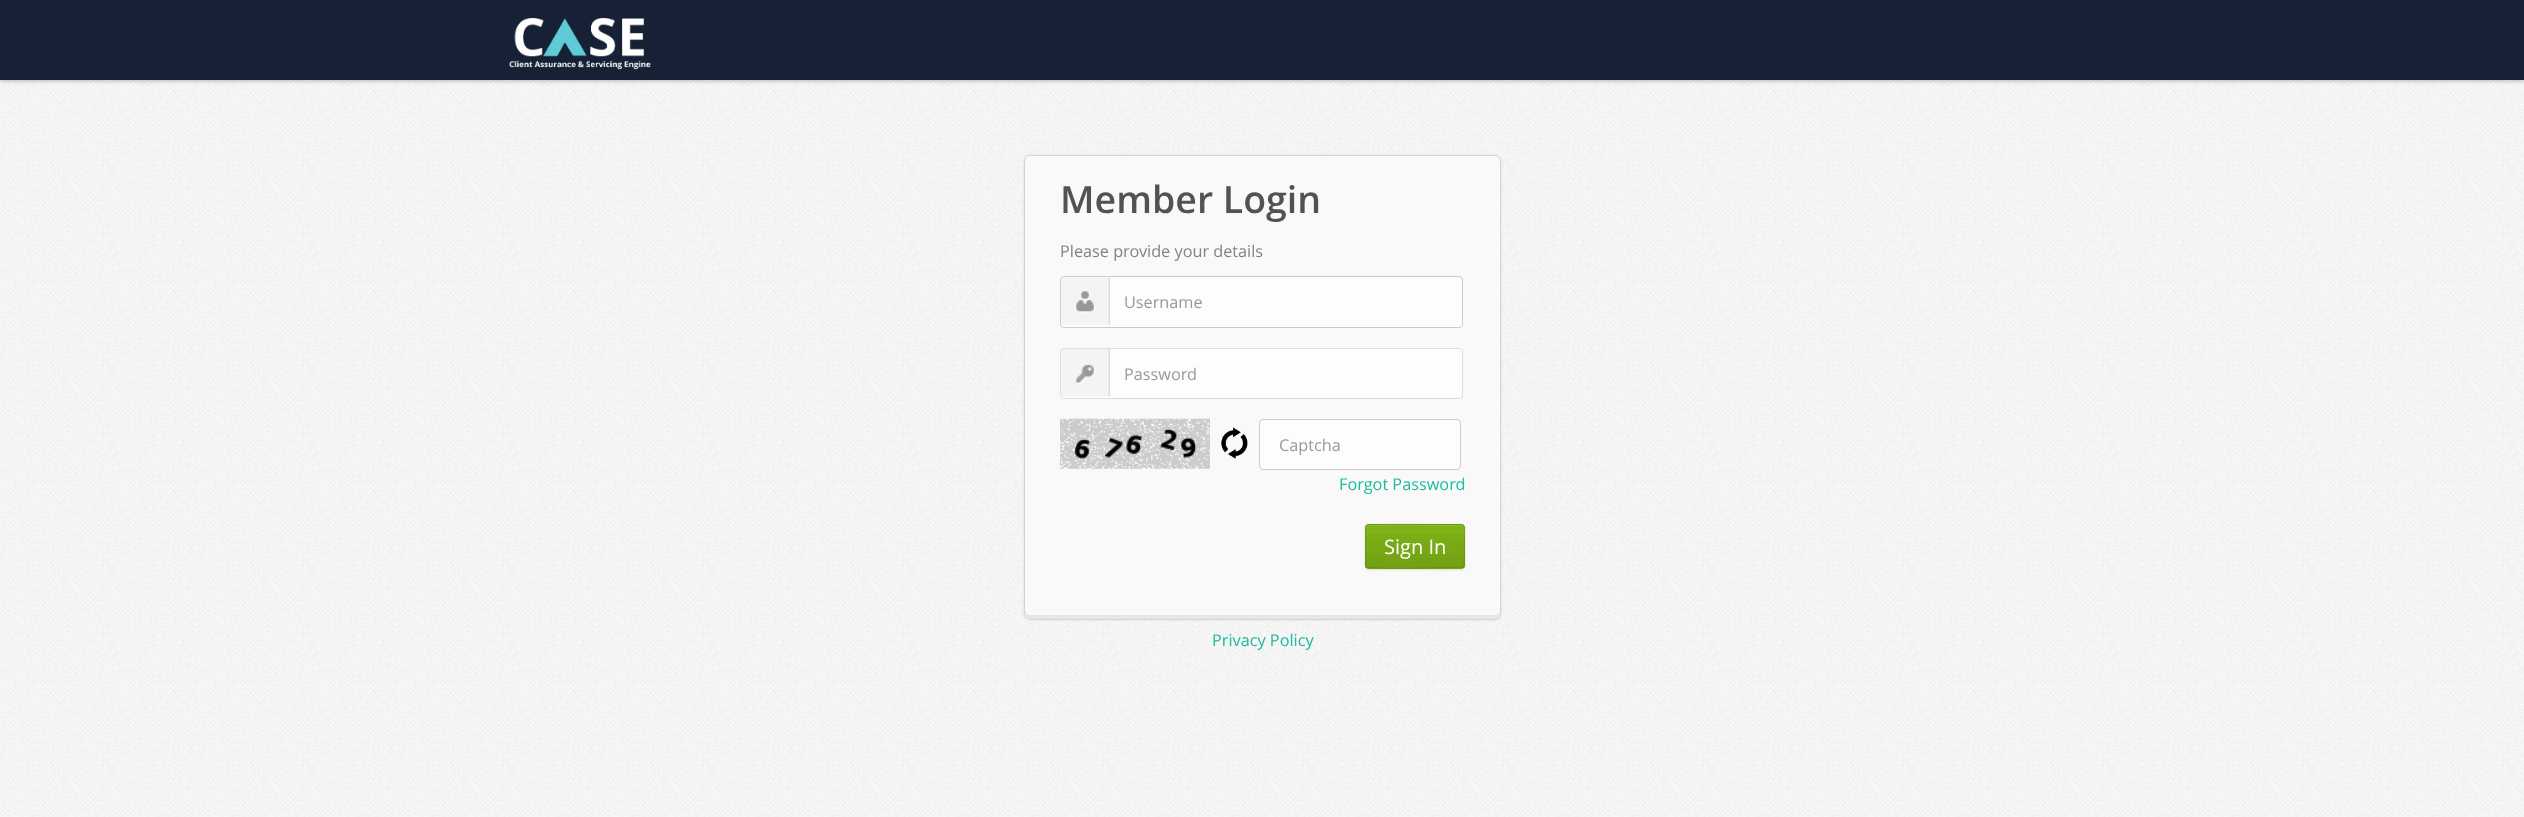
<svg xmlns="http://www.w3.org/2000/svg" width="2524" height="817">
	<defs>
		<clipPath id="clip1"><rect x="1365" y="524" width="100" height="45" rx="4" /></clipPath>
		<linearGradient id="g1" gradientUnits="userSpaceOnUse" x1="1415" y1="483" x2="1415" y2="525"><stop offset="0" stop-color="#000000" stop-opacity="0" /><stop offset="1" stop-color="#000000" stop-opacity="0.1" /></linearGradient>
		<linearGradient id="g2" gradientUnits="userSpaceOnUse" x1="1415" y1="525" x2="1415" y2="568"><stop offset="0" stop-color="#000000" stop-opacity="0" /><stop offset="1" stop-color="#000000" stop-opacity="0.1" /></linearGradient>
	</defs>
	<rect width="100%" height="100%" fill="#FFFFFF" />
	<image x="0" y="80" width="2524" height="737" href="assets/img1.png" />
	<rect x="0" y="1" width="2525" height="80" fill="#000000" fill-opacity="0.25" filter="blur(2px)" />
	<rect x="0" y="0" width="2524" height="79" fill="#162135" />
	<rect x="0" y="79" width="2524" height="1" fill="#141E30" />
	<image x="509" y="18" width="142" height="52" href="assets/img2.png" />
	<rect x="1024" y="155" width="477" height="465" rx="6" fill="#DADADA" filter="blur(1px)" />
	<rect x="1024" y="155" width="477" height="465" rx="6" fill="#F9F9F9" />
	<path d="M1025 610C1025 614 1025 619 1030 619H1495C1500 619 1500 614 1500 610C1500 613 1498 615 1495 615H1030C1027 615 1025 613 1025 610Z" fill="#E6E6E6" />
	<rect x="1024.5" y="155.5" width="476" height="464" rx="5.5" fill="none" stroke="#D5D5D5" />
	<text x="1060" y="213" font-family="Open Sans" font-size="37.5" font-weight="600" fill="#525252">Member Login</text>
	<text x="1060" y="257" font-family="Open Sans" font-size="16.25" fill="#838383">Please provide your details</text>
	<rect x="1060" y="276" width="403" height="52" rx="4" fill="#FDFDFD" />
	<image x="1061" y="277" width="49" height="48" href="assets/img3.png" />
	<rect x="1060.5" y="276.5" width="402" height="51" rx="3.5" fill="none" stroke="#CCCCCC" />
	<text x="1124" y="308" font-family="Open Sans" font-size="16.25" fill="#999999">Username</text>
	<rect x="1060" y="348" width="403" height="51" rx="4" fill="#FDFDFD" />
	<image x="1061" y="348" width="49" height="49" href="assets/img4.png" />
	<rect x="1060.5" y="348.5" width="402" height="50" rx="3.5" fill="none" stroke="#DDDDDD" />
	<text x="1124" y="380" font-family="Open Sans" font-size="16.25" fill="#999999">Password</text>
	<image x="1060" y="418" width="150" height="51" href="assets/img5.png" />
	<image x="1221" y="427" width="27" height="32" href="assets/img6.png" />
	<rect x="1259.5" y="419.5" width="201" height="50" rx="3.5" fill="#FDFDFD" stroke="#CCCCCC" />
	<text x="1279" y="451" font-family="Open Sans" font-size="16.25" fill="#999999">Captcha</text>
	<text x="1339" y="490" font-family="Open Sans" font-size="16.25" fill="#19BC9C">Forgot Password</text>
	<rect x="1365" y="525" width="100" height="45" rx="4" fill="#000000" fill-opacity="0.1" filter="blur(1px)" />
	<rect x="1365" y="524" width="100" height="45" rx="4" fill="#7EB216" />
	<g clip-path="url(#clip1)">
		<rect x="1365" y="524" width="100" height="1" fill="url(#g1)" />
	</g>
	<rect x="1365" y="534" width="100" height="34" fill="url(#g2)" />
	<path d="M1369 526H1461C1463 526 1464 527 1464 529V528C1464 526 1463 525 1462 525H1368C1367 525 1366 526 1366 528V529C1366 527 1367 526 1369 526Z" fill="#8BBA2D" />
	<path d="M1366.5 525.5L1367 525C1369 523.5 1437.5 524.5 1446 524.5H1461L1463.5 525.5" fill="none" stroke="#000000" stroke-opacity="0.05" stroke-width="1.2" />
	<path d="M1463.5 525.5L1464.5 527.5V565L1463.5 567" fill="none" stroke="#000000" stroke-opacity="0.1" stroke-width="1.2" />
	<path d="M1463.5 567L1461 568H1446C1437.5 568 1369 569 1367 567.5L1366.5 567" fill="none" stroke="#000000" stroke-opacity="0.15" stroke-width="1.2" />
	<path d="M1366.5 567L1365.5 565V527.5L1366.5 525.5" fill="none" stroke="#000000" stroke-opacity="0.1" stroke-width="1.2" />
	<text x="1384" y="554" font-family="Open Sans" font-size="20" fill="#FFFFFF">Sign In</text>
	<text x="1212" y="646" font-family="Open Sans" font-size="16.25" fill="#19BC9C">Privacy Policy</text>
</svg>
